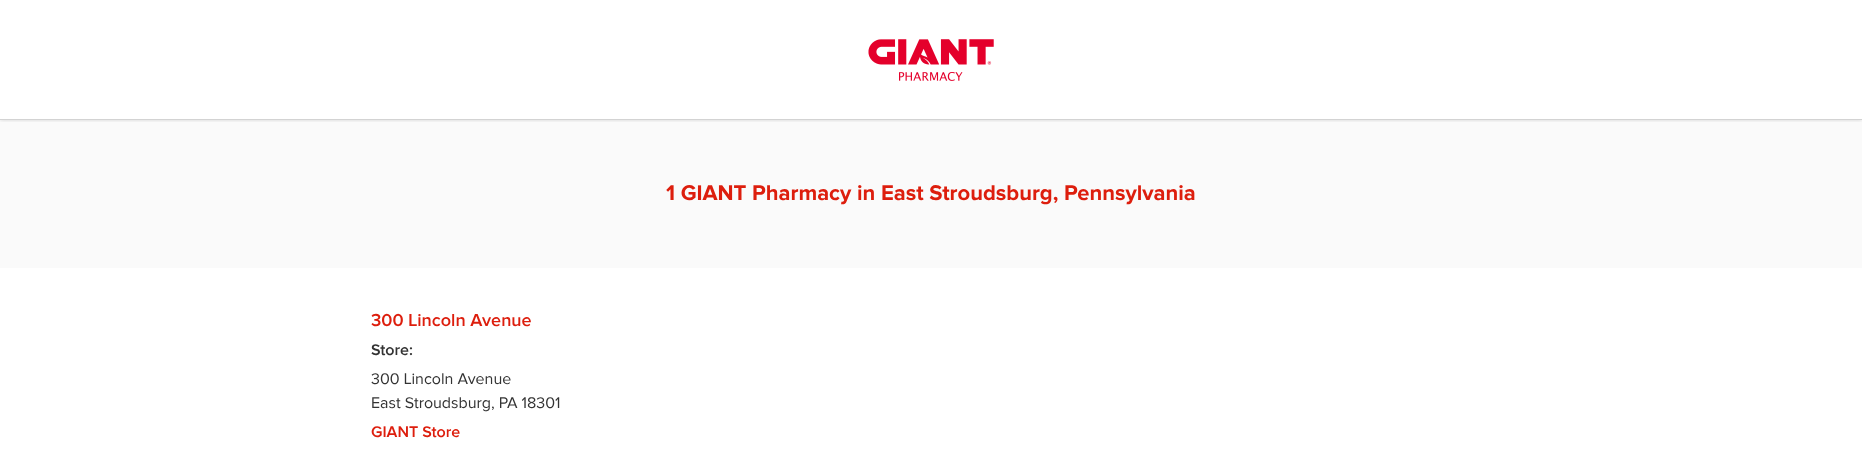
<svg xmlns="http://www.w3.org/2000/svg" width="1862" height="465">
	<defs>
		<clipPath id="clip1"><rect x="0" y="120" width="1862" height="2" /></clipPath>
	</defs>
	<rect width="100%" height="100%" fill="#FFFFFF" />
	<rect x="0" y="120" width="1862" height="148" fill="#FAFAFA" />
	<g clip-path="url(#clip1)">
		<rect x="0" y="0" width="1862" height="120" fill="#000000" fill-opacity="0.15" filter="blur(2px)" />
	</g>
	<rect x="0" y="119" width="1862" height="1" fill="#D3D3D3" />
	<image x="868" y="39" width="126" height="42" href="assets/img1.png" />
	<text x="666" y="200" font-family="Proxima Nova" font-size="22" font-weight="700" fill="#DD1E0D">1 GIANT Pharmacy in East Stroudsburg, Pennsylvania</text>
	<text x="371" y="326" font-family="Proxima Nova" font-size="18" font-weight="600" fill="#DD1E0D">300 Lincoln Avenue</text>
	<text x="371" y="355" font-family="Proxima Nova" font-size="16" font-weight="600" fill="#333333">Store:</text>
	<g font-family="Proxima Nova" font-size="16" fill="#333333">
		<text x="371" y="384">300 Lincoln Avenue</text>
		<text x="371" y="408">East Stroudsburg, PA 18301</text>
	</g>
	<text x="371" y="437" font-family="Proxima Nova" font-size="16" font-weight="600" fill="#DD1E0D">GIANT Store</text>
</svg>
